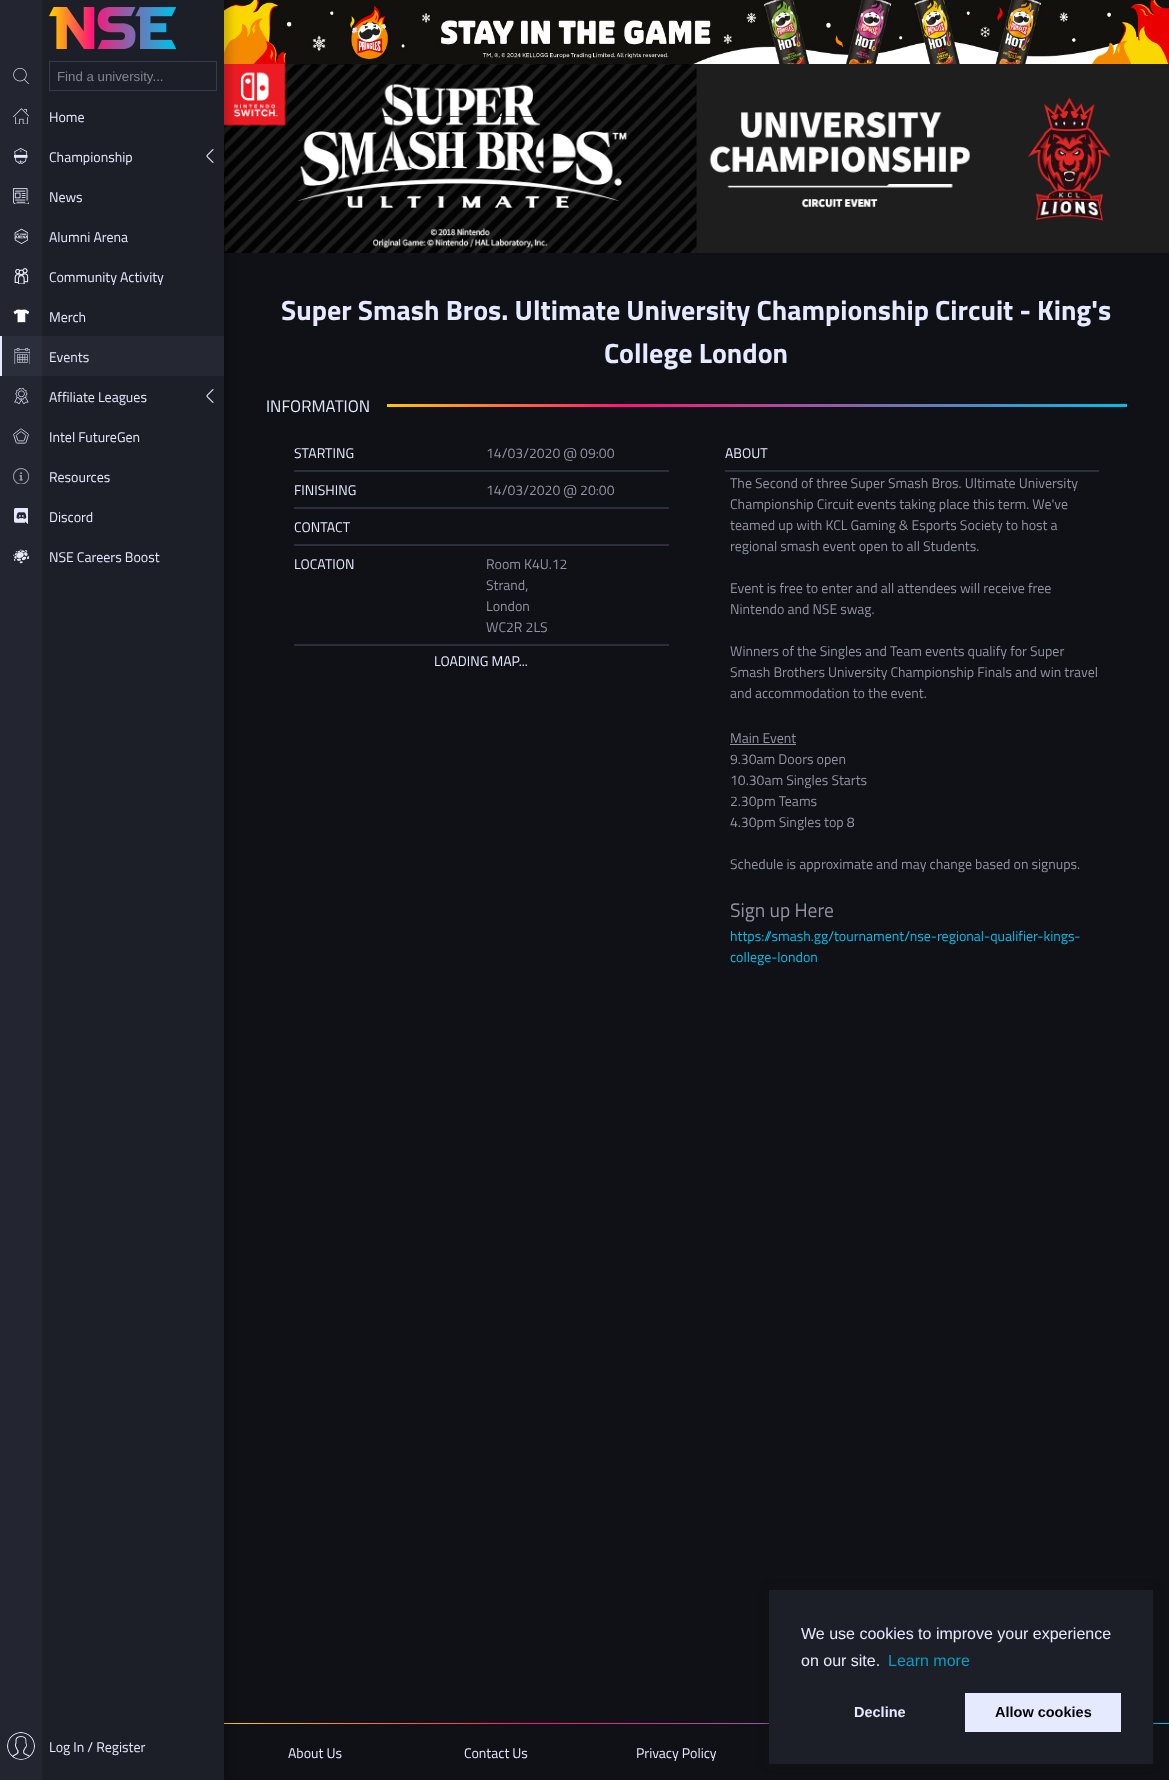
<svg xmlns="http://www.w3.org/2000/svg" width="1169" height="1780">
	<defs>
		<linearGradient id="g1" gradientUnits="userSpaceOnUse" x1="224" y1="1724" x2="1169" y2="1724"><stop offset="0" stop-color="#FFC800" /><stop offset="0.32" stop-color="#FF1577" /><stop offset="1" stop-color="#00BFE9" /></linearGradient>
		<linearGradient id="g2" gradientUnits="userSpaceOnUse" x1="387" y1="406" x2="1127" y2="406"><stop offset="0" stop-color="#FFC800" /><stop offset="0.32" stop-color="#FF1577" /><stop offset="1" stop-color="#00BFE9" /></linearGradient>
	</defs>
	<rect width="100%" height="100%" fill="#101116" />
	<image x="224" y="0" width="945" height="64" href="assets/img17.png" />
	<image x="224" y="64" width="945" height="189" href="assets/img18.png" />
	<rect x="224" y="1723" width="945" height="1" fill="url(#g1)" />
	<rect x="-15" y="-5" width="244" height="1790" fill="#000000" fill-opacity="0.2" filter="blur(5px)" />
	<rect x="0" y="0" width="42" height="1780" fill="#232631" />
	<image x="13" y="68" width="16" height="16" href="assets/img1.png" />
	<image x="13" y="108" width="16" height="16" href="assets/img2.png" />
	<image x="14" y="148" width="14" height="16" href="assets/img3.png" />
	<image x="13" y="188" width="16" height="16" href="assets/img4.png" />
	<image x="14" y="228" width="14" height="16" href="assets/img5.png" />
	<image x="14" y="268" width="15" height="16" href="assets/img6.png" />
	<image x="13" y="309" width="16" height="14" href="assets/img7.png" />
	<rect x="2" y="336" width="40" height="40" fill="#2A2F3B" />
	<rect x="0" y="336" width="2" height="40" fill="#E6EAFF" />
	<image x="14" y="348" width="16" height="16" href="assets/img8.png" />
	<image x="14" y="388" width="15" height="16" href="assets/img9.png" />
	<image x="13" y="428" width="16" height="16" href="assets/img10.png" />
	<image x="13" y="468" width="16" height="16" href="assets/img11.png" />
	<image x="14" y="508" width="14" height="16" href="assets/img12.png" />
	<image x="13" y="549" width="16" height="15" href="assets/img13.png" />
	<image x="7" y="1732" width="28" height="28" href="assets/img14.png" />
	<rect x="42" y="0" width="182" height="1780" fill="#1D1F28" />
	<image x="49" y="7" width="127" height="42" href="assets/img15.png" />
	<rect x="49.5" y="61.5" width="167" height="29" fill="none" stroke="#333B4C" />
	<text x="57" y="81" font-family="Liberation Sans" font-size="13.25" fill="#818493">Find a university...</text>
	<g font-family="Titillium Web" font-size="14" fill="#E6EAFF">
		<text x="49" y="122">Home</text>
		<text x="49" y="162">Championship</text>
	</g>
	<image x="206" y="149" width="8" height="14" href="assets/img16.png" />
	<g font-family="Titillium Web" font-size="14" fill="#E6EAFF">
		<text x="49" y="202">News</text>
		<text x="49" y="242">Alumni Arena</text>
		<text x="49" y="282">Community Activity</text>
		<text x="49" y="322">Merch</text>
	</g>
	<rect x="42" y="336" width="182" height="40" fill="#252832" />
	<g font-family="Titillium Web" font-size="14" fill="#E6EAFF">
		<text x="49" y="362">Events</text>
		<text x="49" y="402">Affiliate Leagues</text>
	</g>
	<image x="206" y="389" width="8" height="14" href="assets/img16.png" />
	<g font-family="Titillium Web" font-size="14" fill="#E6EAFF">
		<text x="49" y="442">Intel FutureGen</text>
		<text x="49" y="482">Resources</text>
		<text x="49" y="522">Discord</text>
		<text x="49" y="562">NSE Careers Boost</text>
		<text x="49" y="1752">Log In / Register</text>
	</g>
	<g font-family="Titillium Web" font-size="28" font-weight="700" fill="#E6EAFF">
		<text x="281" y="320">Super Smash Bros. Ultimate University Championship Circuit - King's</text>
		<text x="604" y="363">College London</text>
	</g>
	<text x="266" y="412" font-family="Titillium Web" font-size="16.75" fill="#E6EAFF">INFORMATION</text>
	<rect x="387" y="404" width="740" height="3" fill="url(#g2)" />
	<rect x="294" y="470" width="375" height="2" fill="#292F3D" />
	<text x="294" y="458" font-family="Titillium Web" font-size="14" fill="#E6EAFF">STARTING</text>
	<text x="486" y="458" font-family="Titillium Web" font-size="14" fill="#9093A2">14/03/2020 @ 09:00</text>
	<rect x="294" y="507" width="375" height="2" fill="#292F3D" />
	<text x="294" y="495" font-family="Titillium Web" font-size="14" fill="#E6EAFF">FINISHING</text>
	<text x="486" y="495" font-family="Titillium Web" font-size="14" fill="#9093A2">14/03/2020 @ 20:00</text>
	<rect x="294" y="544" width="375" height="2" fill="#292F3D" />
	<text x="294" y="532" font-family="Titillium Web" font-size="14" fill="#E6EAFF">CONTACT</text>
	<rect x="294" y="644" width="375" height="2" fill="#292F3D" />
	<text x="294" y="569" font-family="Titillium Web" font-size="14" fill="#E6EAFF">LOCATION</text>
	<g font-family="Titillium Web" font-size="14" fill="#9093A2">
		<text x="486" y="569">Room K4U.12</text>
		<text x="486" y="590">Strand,</text>
		<text x="486" y="611">London</text>
		<text x="486" y="632">WC2R 2LS</text>
	</g>
	<text x="434" y="666" font-family="Titillium Web" font-size="14" fill="#E6EAFF">LOADING MAP...</text>
	<rect x="725" y="470" width="374" height="2" fill="#292F3D" />
	<text x="725" y="458" font-family="Titillium Web" font-size="14" fill="#E6EAFF">ABOUT</text>
	<g font-family="Titillium Web" font-size="14" fill="#9093A2">
		<text x="730" y="488">The Second of three Super Smash Bros. Ultimate University</text>
		<text x="730" y="509">Championship Circuit events taking place this term. We've</text>
		<text x="730" y="530">teamed up with KCL Gaming &amp; Esports Society to host a</text>
		<text x="730" y="551">regional smash event open to all Students.</text>
		<text x="730" y="593">Event is free to enter and all attendees will receive free</text>
		<text x="730" y="614">Nintendo and NSE swag.</text>
		<text x="730" y="656">Winners of the Singles and Team events qualify for Super</text>
		<text x="730" y="677">Smash Brothers University Championship Finals and win travel</text>
		<text x="730" y="698">and accommodation to the event.</text>
		<text x="730" y="743">Main Event</text>
	</g>
	<rect x="730" y="744" width="66" height="1" fill="#9093A2" />
	<g font-family="Titillium Web" font-size="14" fill="#9093A2">
		<text x="730" y="764">9.30am Doors open</text>
		<text x="730" y="785">10.30am Singles Starts</text>
		<text x="730" y="806">2.30pm Teams</text>
		<text x="730" y="827">4.30pm Singles top 8</text>
		<text x="730" y="869">Schedule is approximate and may change based on signups.</text>
	</g>
	<text x="730" y="917" font-family="Titillium Web" font-size="19.5" fill="#9093A2">Sign up Here</text>
	<g font-family="Titillium Web" font-size="14" fill="#00BFE9">
		<text x="730" y="941">https://smash.gg/tournament/nse-regional-qualifier-kings-</text>
		<text x="730" y="962">college-london</text>
	</g>
	<g font-family="Titillium Web" font-size="14" fill="#E6EAFF">
		<text x="288" y="1758">About Us</text>
		<text x="464" y="1758">Contact Us</text>
		<text x="636" y="1758">Privacy Policy</text>
	</g>
	<rect x="769" y="1590" width="384" height="174" fill="#101116" fill-opacity="0.5" filter="blur(5px)" />
	<rect x="769" y="1590" width="384" height="174" fill="#1D1F28" />
	<g font-family="Liberation Sans" font-size="16" fill="#E6EAFF">
		<text x="801" y="1639">We use cookies to improve your experience</text>
		<text x="801" y="1666">on our site.</text>
	</g>
	<text x="888" y="1666" font-family="Liberation Sans" font-size="16" fill="#069FC2">Learn more</text>
	<text x="854" y="1717" font-family="Liberation Sans" font-size="14.5" font-weight="700" fill="#E6EAFF">Decline</text>
	<rect x="965" y="1693" width="156" height="39" fill="#E6EAFF" />
	<text x="995" y="1717" font-family="Liberation Sans" font-size="14.5" font-weight="700" fill="#000000">Allow cookies</text>
</svg>
